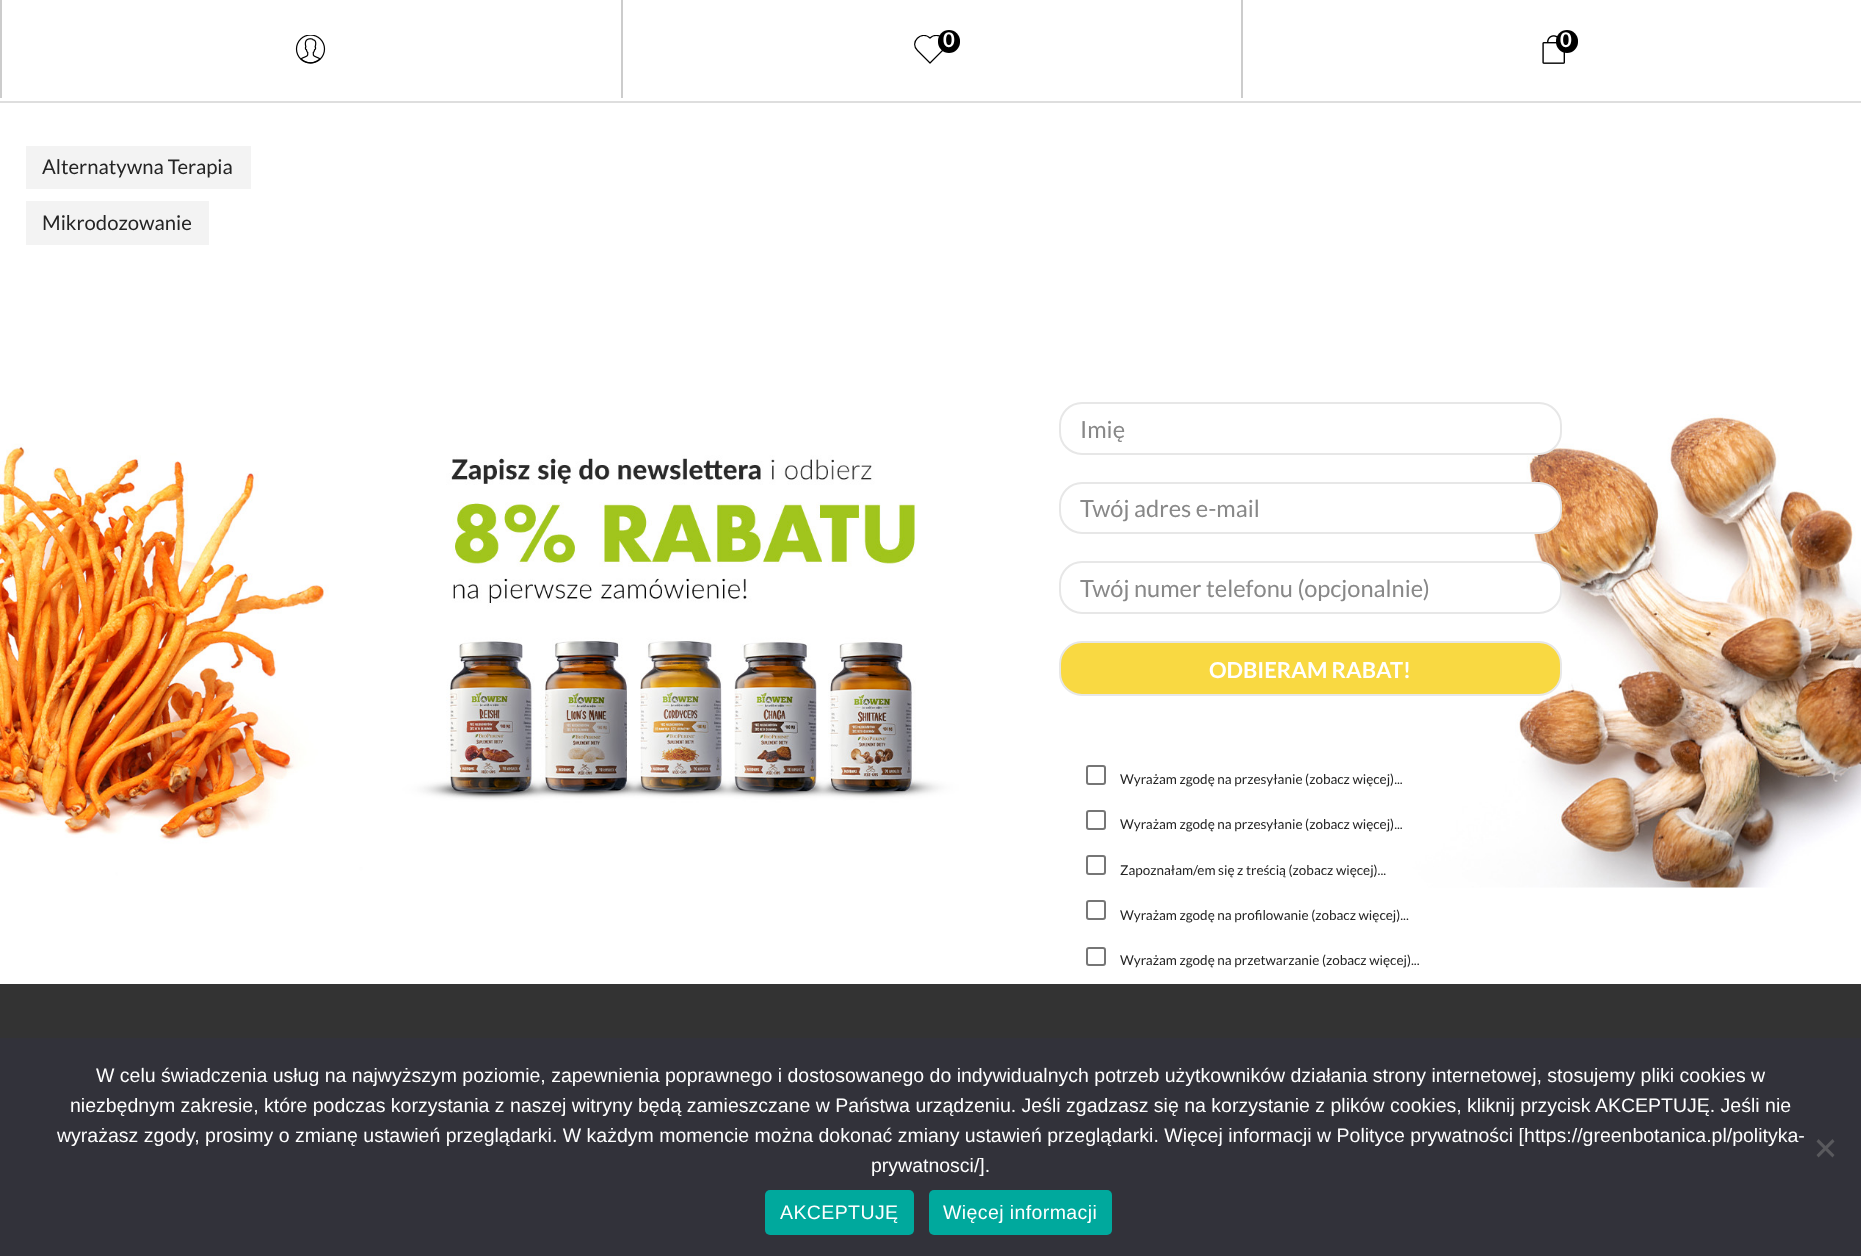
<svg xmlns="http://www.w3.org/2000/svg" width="1861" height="1256">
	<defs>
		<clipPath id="clip1"><rect x="914" y="35" width="36" height="30" /></clipPath>
	</defs>
	<rect width="100%" height="100%" fill="#FFFFFF" />
	<rect x="0" y="0" width="2" height="98" fill="#CCCCCC" />
	<image x="295" y="35" width="31" height="29" href="assets/img1.png" />
	<rect x="621" y="0" width="2" height="98" fill="#CCCCCC" />
	<g clip-path="url(#clip1)">
		<path d="M917.5 50.5C909 42.5 921.5 30 930 38C933.5 34.5 939 34.5 942.5 38C946 41.5 946 47 942.5 50.5L930 63Z" fill="none" stroke="#000000" stroke-width="1.2" stroke-linecap="round" stroke-linejoin="round" />
	</g>
	<rect x="938" y="30" width="22" height="23" rx="11" fill="#000000" />
	<text x="943" y="47" font-family="Lato" font-size="20.25" font-weight="700" fill="#FFFFFF">0</text>
	<rect x="1241" y="0" width="2" height="98" fill="#CCCCCC" />
	<image x="1542" y="35" width="23" height="29" href="assets/img2.png" />
	<rect x="1556" y="30" width="22" height="23" rx="11" fill="#000000" />
	<text x="1560" y="47" font-family="Lato" font-size="20.25" font-weight="700" fill="#FFFFFF">0</text>
	<rect x="0" y="101" width="1861" height="2" fill="#DEDEDE" />
	<rect x="26" y="146" width="225" height="43" fill="#F3F3F3" />
	<text x="42" y="174" font-family="Lato" font-size="20.25" fill="#242424">Alternatywna Terapia</text>
	<rect x="26" y="201" width="183" height="44" fill="#F3F3F3" />
	<text x="42" y="230" font-family="Lato" font-size="20.25" fill="#242424">Mikrodozowanie</text>
	<image x="0" y="414" width="1861" height="474" href="assets/img3.png" />
	<rect x="1060" y="403" width="501" height="51" rx="22" fill="#FFFFFF" stroke="#E7E7E7" stroke-width="2" />
	<text x="1080" y="438" font-family="Lato" font-size="23.6" fill="#888888">Imię</text>
	<rect x="1060" y="483" width="501" height="50" rx="22" fill="#FFFFFF" stroke="#E7E7E7" stroke-width="2" />
	<text x="1080" y="517" font-family="Lato" font-size="23.6" fill="#888888">Twój adres e-mail</text>
	<rect x="1060" y="562" width="501" height="51" rx="22" fill="#FFFFFF" stroke="#E7E7E7" stroke-width="2" />
	<text x="1080" y="597" font-family="Lato" font-size="23.6" fill="#888888">Twój numer telefonu (opcjonalnie)</text>
	<rect x="1060" y="642" width="501" height="53" rx="22" fill="#F9D942" stroke="#E7E7E7" stroke-width="2" />
	<text x="1209" y="678" font-family="Lato" font-size="22" font-weight="700" fill="#FFFFFF">ODBIERAM RABAT!</text>
	<rect x="1087" y="766" width="18" height="18" rx="2" fill="none" stroke="#767676" stroke-width="2" />
	<text x="1120" y="784" font-family="Lato" font-size="13.5" fill="#242424">Wyrażam zgodę na przesyłanie (zobacz więcej)...</text>
	<rect x="1087" y="811" width="18" height="18" rx="2" fill="none" stroke="#767676" stroke-width="2" />
	<text x="1120" y="829" font-family="Lato" font-size="13.5" fill="#242424">Wyrażam zgodę na przesyłanie (zobacz więcej)...</text>
	<rect x="1087" y="856" width="18" height="18" rx="2" fill="none" stroke="#767676" stroke-width="2" />
	<text x="1120" y="875" font-family="Lato" font-size="13.5" fill="#242424">Zapoznałam/em się z treścią (zobacz więcej)...</text>
	<rect x="1087" y="901" width="18" height="18" rx="2" fill="none" stroke="#767676" stroke-width="2" />
	<text x="1120" y="920" font-family="Lato" font-size="13.5" fill="#242424">Wyrażam zgodę na profilowanie (zobacz więcej)...</text>
	<rect x="1087" y="948" width="18" height="17" rx="2" fill="none" stroke="#767676" stroke-width="2" />
	<text x="1120" y="965" font-family="Lato" font-size="13.5" fill="#242424">Wyrażam zgodę na przetwarzanie (zobacz więcej)...</text>
	<rect x="0" y="984" width="1861" height="54" fill="#333333" />
	<rect x="0" y="1038" width="1861" height="218" fill="#32323A" />
	<g font-family="Liberation Sans" font-size="19.5" fill="#FFFFFF">
		<text x="96" y="1082">W celu świadczenia usług na najwyższym poziomie, zapewnienia poprawnego i dostosowanego do indywidualnych potrzeb użytkowników działania strony internetowej, stosujemy pliki cookies w</text>
		<text x="70" y="1112">niezbędnym zakresie, które podczas korzystania z naszej witryny będą zamieszczane w Państwa urządzeniu. Jeśli zgadzasz się na korzystanie z plików cookies, kliknij przycisk AKCEPTUJĘ. Jeśli nie</text>
		<text x="57" y="1142">wyrażasz zgody, prosimy o zmianę ustawień przeglądarki. W każdym momencie można dokonać zmiany ustawień przeglądarki. Więcej informacji w Polityce prywatności [https://greenbotanica.pl/polityka-</text>
		<text x="871" y="1172">prywatnosci/].</text>
	</g>
	<path d="M1832.5 1139L1834.5 1141.5L1818.5 1157.5L1816.5 1155Z" fill="#59595D" />
	<path d="M1816.5 1141.5L1818.5 1139L1834.5 1155L1832.5 1157.5Z" fill="#59595D" />
	<rect x="765" y="1190" width="149" height="45" rx="5" fill="#00A99D" />
	<text x="780" y="1219" font-family="Liberation Sans" font-size="19.5" letter-spacing="0.4" fill="#FFFFFF">AKCEPTUJĘ</text>
	<rect x="929" y="1190" width="183" height="45" rx="5" fill="#00A99D" />
	<text x="943" y="1219" font-family="Liberation Sans" font-size="19.5" letter-spacing="0.4" fill="#FFFFFF">Więcej informacji</text>
</svg>
